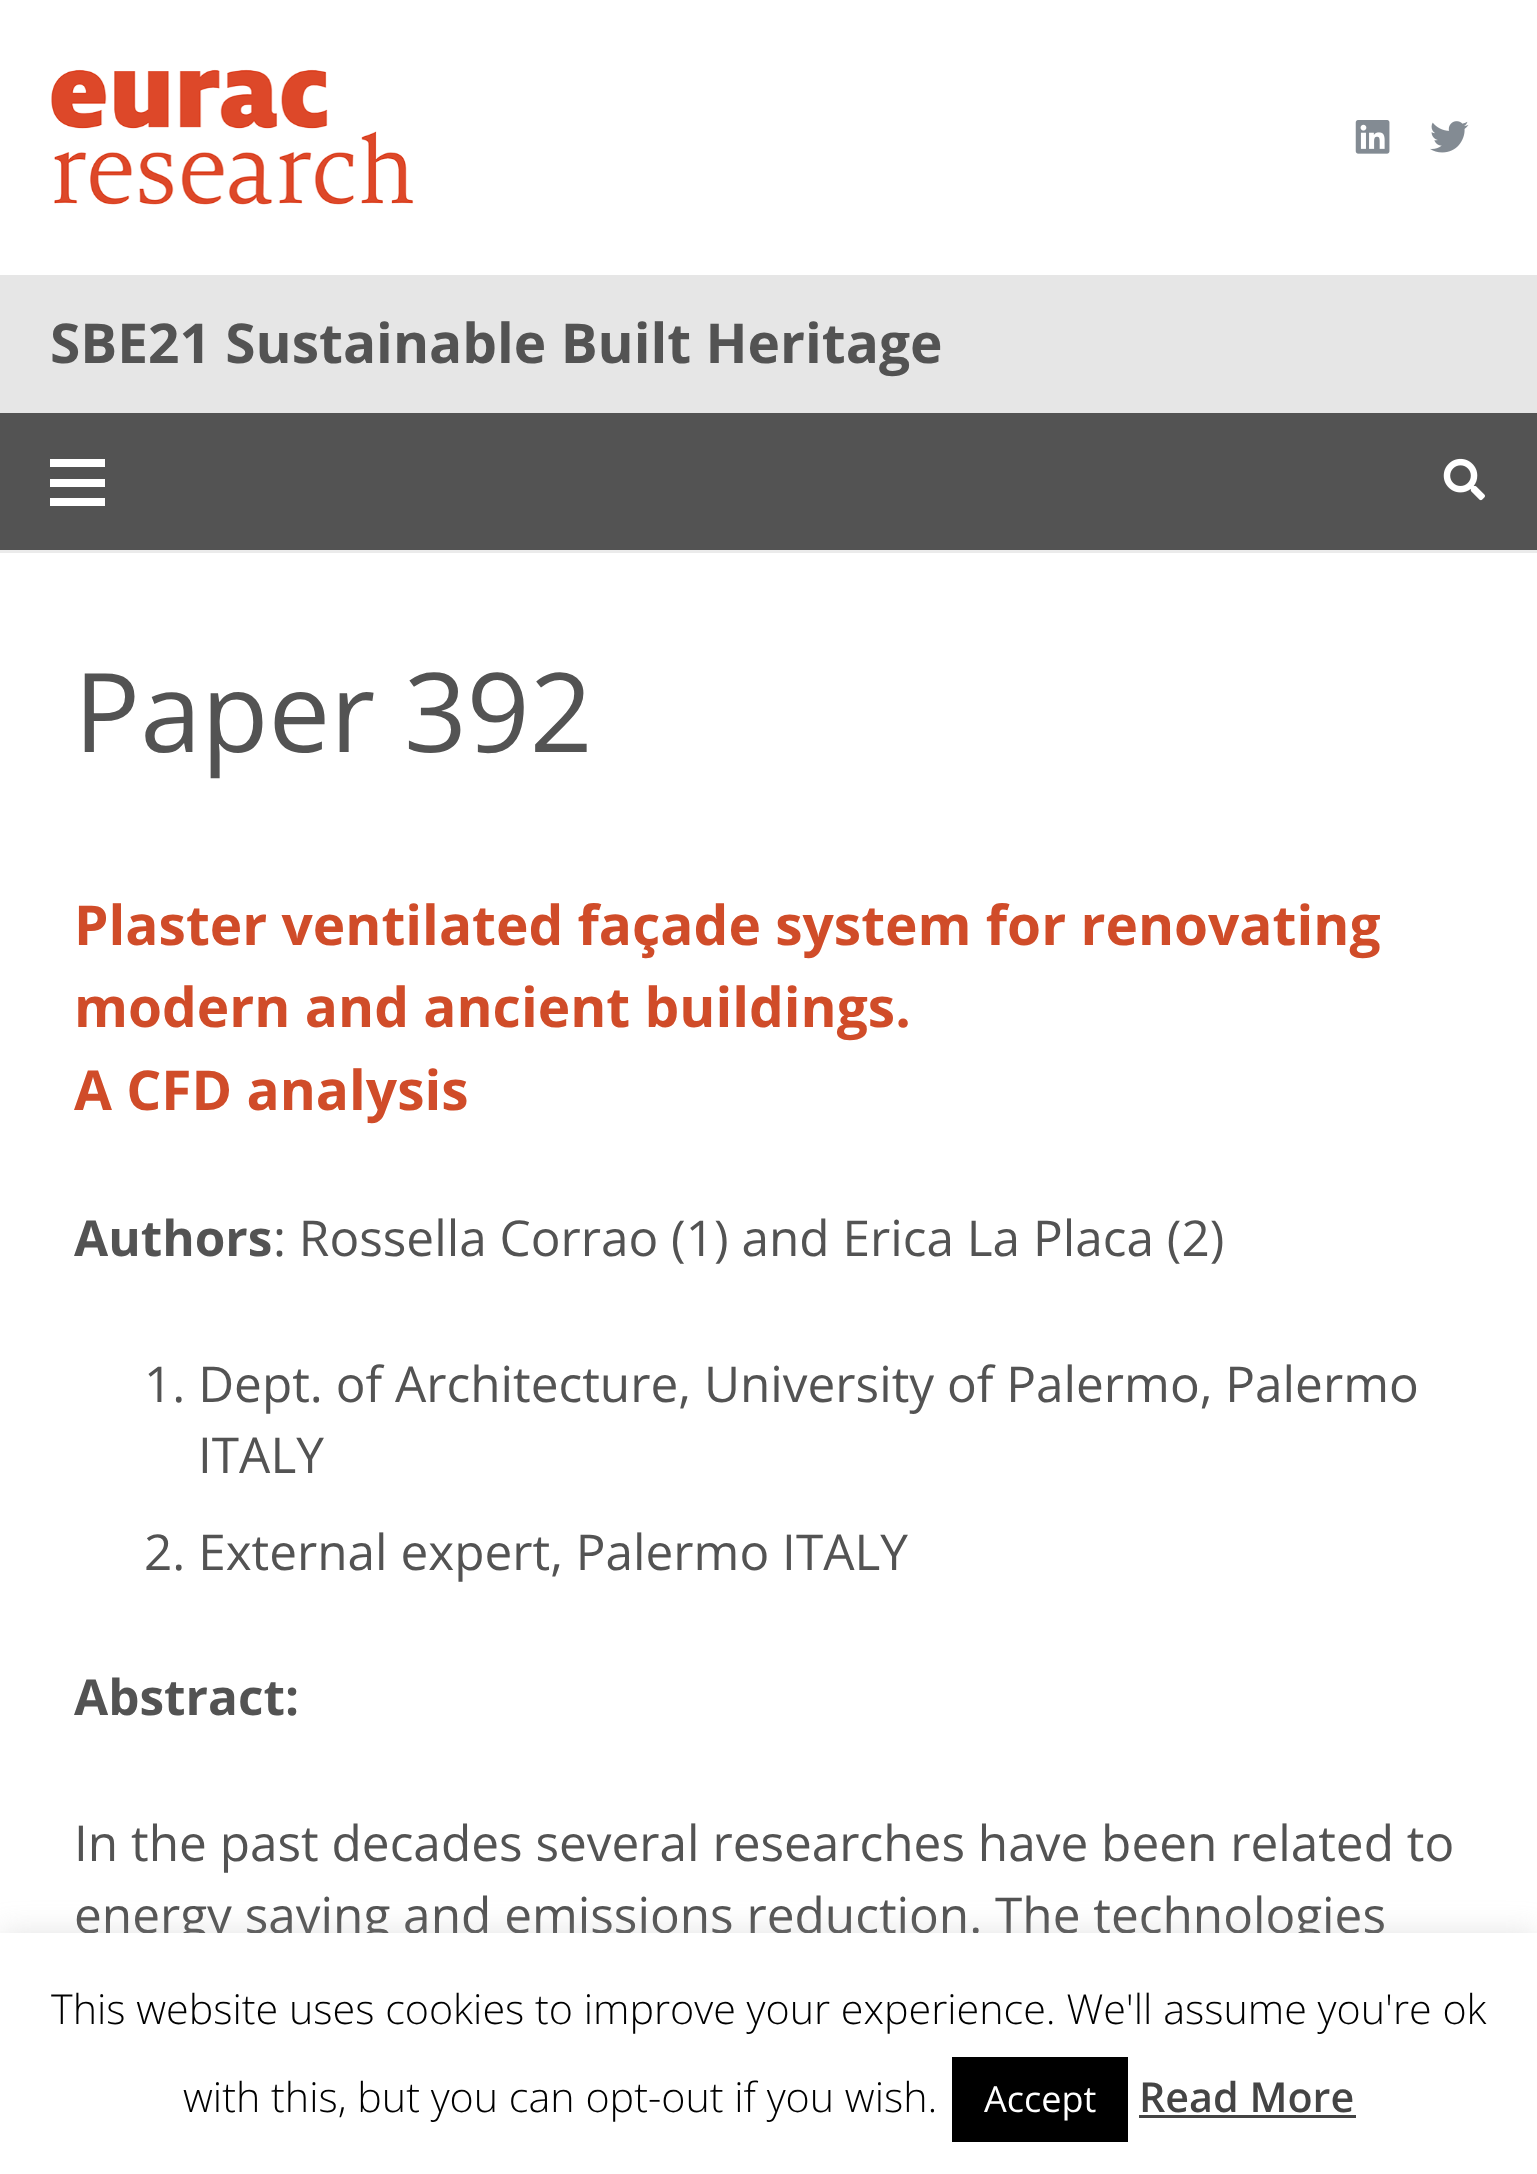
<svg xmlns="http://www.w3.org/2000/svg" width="1537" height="2174">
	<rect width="100%" height="100%" fill="#FFFFFF" />
	<image x="51" y="69" width="363" height="136" href="assets/img1.png" />
	<image x="1355" y="120" width="35" height="34" href="assets/img2.png" />
	<image x="1430" y="121" width="39" height="32" href="assets/img3.png" />
	<rect x="0" y="275" width="1537" height="138" fill="#E6E6E6" />
	<text x="50" y="363" font-family="Open Sans" font-size="55" font-weight="700" fill="#535353">SBE21 Sustainable Built Heritage</text>
	<rect x="0" y="550" width="1537" height="3" fill="#EBEBEB" />
	<rect x="0" y="413" width="1537" height="137" fill="#535353" />
	<rect x="50" y="479" width="55" height="8" fill="#FFFFFF" />
	<rect x="50" y="459" width="55" height="8" fill="#FFFFFF" />
	<rect x="50" y="498" width="55" height="8" fill="#FFFFFF" />
	<image x="1443" y="458" width="42" height="43" href="assets/img4.png" />
	<text x="74" y="752" font-family="Open Sans" font-size="110" fill="#535353">Paper 392</text>
	<g font-family="Open Sans" font-size="55" font-weight="700" fill="#D04C29">
		<text x="74" y="945">Plaster ventilated façade system for renovating</text>
		<text x="74" y="1027">modern and ancient buildings.</text>
		<text x="74" y="1110">A CFD analysis</text>
	</g>
	<text x="74" y="1256" font-family="Open Sans" font-size="49.5" font-weight="700" fill="#535353">Authors</text>
	<g font-family="Open Sans" font-size="49.5" fill="#535353">
		<text x="273" y="1256">: Rossella Corrao (1) and Erica La Placa (2)</text>
		<text x="144" y="1402">1. Dept. of Architecture, University of Palermo, Palermo</text>
		<text x="198" y="1473">ITALY</text>
		<text x="144" y="1570">2. External expert, Palermo ITALY</text>
	</g>
	<text x="74" y="1715" font-family="Open Sans" font-size="49.5" font-weight="700" fill="#535353">Abstract:</text>
	<g font-family="Open Sans" font-size="49.5" fill="#535353">
		<text x="74" y="1861">In the past decades several researches have been related to</text>
		<text x="74" y="1933">energy saving and emissions reduction. The technologies</text>
	</g>
	<rect x="0" y="1931" width="1537" height="242" fill="#ACABAB" fill-opacity="0.3" filter="blur(14px)" />
	<rect x="0" y="1933" width="1537" height="241" fill="#FFFFFF" />
	<g font-family="Open Sans" font-size="41.25" font-weight="300" fill="#000000">
		<text x="51" y="2024">This website uses cookies to improve your experience. We'll assume you're ok</text>
		<text x="183" y="2112">with this, but you can opt-out if you wish.</text>
	</g>
	<rect x="952" y="2057" width="176" height="85" fill="#000000" />
	<text x="984" y="2112" font-family="Open Sans" font-size="36" fill="#FFFFFF">Accept</text>
	<text x="1139" y="2112" font-family="Open Sans" font-size="41.25" font-weight="600" fill="#444444">Read More</text>
	<rect x="1139" y="2115" width="217" height="3" fill="#444444" />
</svg>
